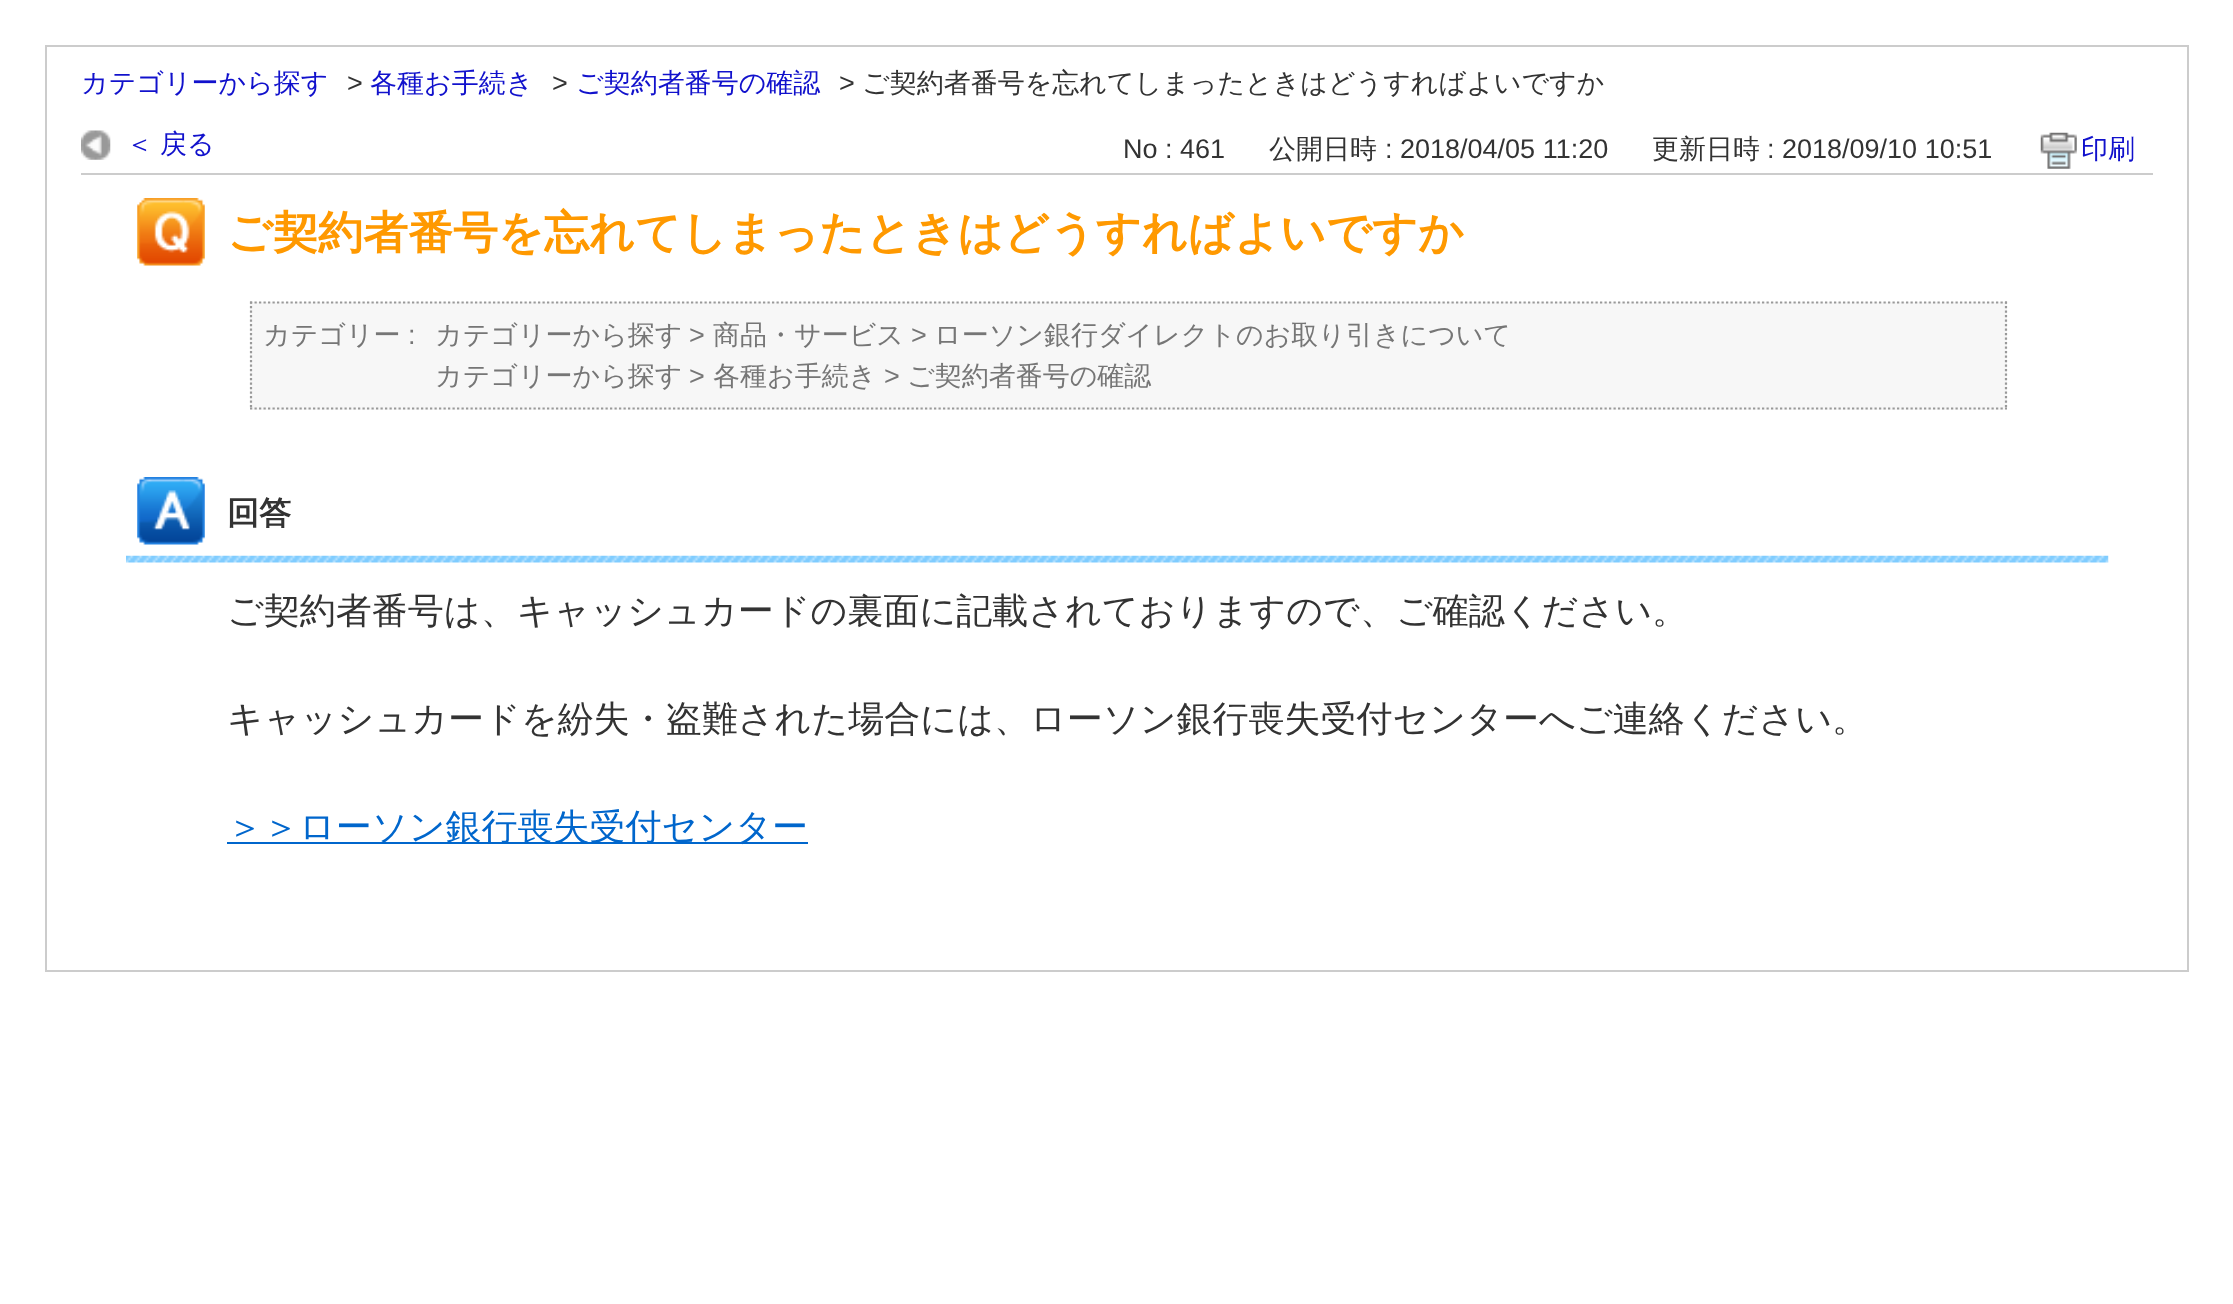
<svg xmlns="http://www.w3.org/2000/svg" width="2233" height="1304">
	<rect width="100%" height="100%" fill="#FFFFFF" />
	<rect x="46" y="46" width="2142" height="925" fill="none" stroke="#CCCCCC" stroke-width="2" />
	<text x="81" y="92" font-family="WenQuanYi Zen Hei" font-size="27" font-weight="500" fill="#1111CC">カテゴリーから探す</text>
	<text x="347" y="92" font-family="Liberation Sans" font-size="27" fill="#333333">&gt;</text>
	<text x="370" y="92" font-family="WenQuanYi Zen Hei" font-size="27" font-weight="500" fill="#1111CC">各種お手続き</text>
	<text x="552" y="92" font-family="Liberation Sans" font-size="27" fill="#333333">&gt;</text>
	<text x="576" y="92" font-family="WenQuanYi Zen Hei" font-size="27" font-weight="500" fill="#1111CC">ご契約者番号の確認</text>
	<text x="839" y="92" font-family="Liberation Sans" font-size="27" fill="#333333">&gt;</text>
	<text x="862" y="92" font-family="WenQuanYi Zen Hei" font-size="27" font-weight="500" fill="#333333">ご契約者番号を忘れてしまったときはどうすればよいですか</text>
	<rect x="81" y="173" width="2072" height="2" fill="#CCCCCC" />
	<image x="81" y="130" width="30" height="30" href="assets/img1.png" />
	<text x="126" y="153" word-spacing="-1" font-family="WenQuanYi Zen Hei" font-size="27" font-weight="500" fill="#1111CC">＜ 戻る</text>
	<text x="1123" y="158" font-family="Liberation Sans" font-size="27" fill="#333333">No : 461</text>
	<text x="1269" y="158" font-family="WenQuanYi Zen Hei" font-size="27" font-weight="500" fill="#333333">公開日時</text>
	<text x="1385" y="158" font-family="Liberation Sans" font-size="27" fill="#333333">: 2018/04/05 11:20</text>
	<text x="1652" y="158" font-family="WenQuanYi Zen Hei" font-size="27" font-weight="500" fill="#333333">更新日時</text>
	<text x="1767" y="158" font-family="Liberation Sans" font-size="27" fill="#333333">: 2018/09/10 10:51</text>
	<image x="2040" y="132" width="37" height="37" href="assets/img2.png" />
	<text x="2081" y="158" font-family="WenQuanYi Zen Hei" font-size="27" font-weight="500" fill="#1111CC">印刷</text>
	<image x="137" y="198" width="68" height="68" href="assets/img3.png" />
	<text x="227" y="248" font-family="WenQuanYi Zen Hei" font-size="45" font-weight="700" fill="#FF9900">ご契約者番号を忘れてしまったときはどうすればよいですか</text>
	<rect x="250" y="302" width="1757" height="108" fill="#F7F7F7" />
	<path d="M250 302.5H2007" fill="none" stroke="#999999" stroke-width="2.2" stroke-dasharray="2.25 2.25" />
	<path d="M2006 301.5V409.5" fill="none" stroke="#999999" stroke-width="2.2" stroke-dasharray="2.25 2.25" />
	<path d="M250 408.5H2007" fill="none" stroke="#999999" stroke-width="2.2" stroke-dasharray="2.25 2.25" />
	<path d="M251 301.5V409.5" fill="none" stroke="#999999" stroke-width="2.2" stroke-dasharray="2.25 2.25" />
	<text x="263" y="344" font-family="WenQuanYi Zen Hei" font-size="27" font-weight="500" fill="#767676">カテゴリー</text>
	<text x="408" y="344" font-family="Liberation Sans" font-size="27" fill="#767676">:</text>
	<text x="435" y="344" font-family="WenQuanYi Zen Hei" font-size="27" font-weight="500" fill="#767676">カテゴリーから探す</text>
	<text x="689" y="344" font-family="Liberation Sans" font-size="27" fill="#767676">&gt;</text>
	<text x="713" y="344" font-family="WenQuanYi Zen Hei" font-size="27" font-weight="500" fill="#767676">商品・サービス</text>
	<text x="911" y="344" font-family="Liberation Sans" font-size="27" fill="#767676">&gt;</text>
	<g font-family="WenQuanYi Zen Hei" font-size="27" font-weight="500" fill="#767676">
		<text x="934" y="344">ローソン銀行ダイレクトのお取り引きについて</text>
		<text x="435" y="385">カテゴリーから探す</text>
	</g>
	<text x="689" y="385" font-family="Liberation Sans" font-size="27" fill="#767676">&gt;</text>
	<text x="713" y="385" font-family="WenQuanYi Zen Hei" font-size="27" font-weight="500" fill="#767676">各種お手続き</text>
	<text x="884" y="385" font-family="Liberation Sans" font-size="27" fill="#767676">&gt;</text>
	<text x="907" y="385" font-family="WenQuanYi Zen Hei" font-size="27" font-weight="500" fill="#767676">ご契約者番号の確認</text>
	<image x="126" y="555" width="1983" height="8" href="assets/img4.png" />
	<image x="137" y="477" width="68" height="68" href="assets/img5.png" />
	<text x="227" y="524" font-family="WenQuanYi Zen Hei" font-size="32" font-weight="700" fill="#333333">回答</text>
	<g font-family="WenQuanYi Zen Hei" font-size="36" font-weight="500" fill="#333333">
		<text x="227" y="623">ご契約者番号は、キャッシュカードの裏面に記載されておりますので、ご確認ください。</text>
		<text x="227" y="731">キャッシュカードを紛失・盗難された場合には、ローソン銀行喪失受付センターへご連絡ください。</text>
	</g>
	<rect x="227" y="842" width="581" height="2" fill="#0066CC" />
	<text x="227" y="839" font-family="WenQuanYi Zen Hei" font-size="36" font-weight="500" fill="#0066CC">＞＞ローソン銀行喪失受付センター</text>
</svg>
